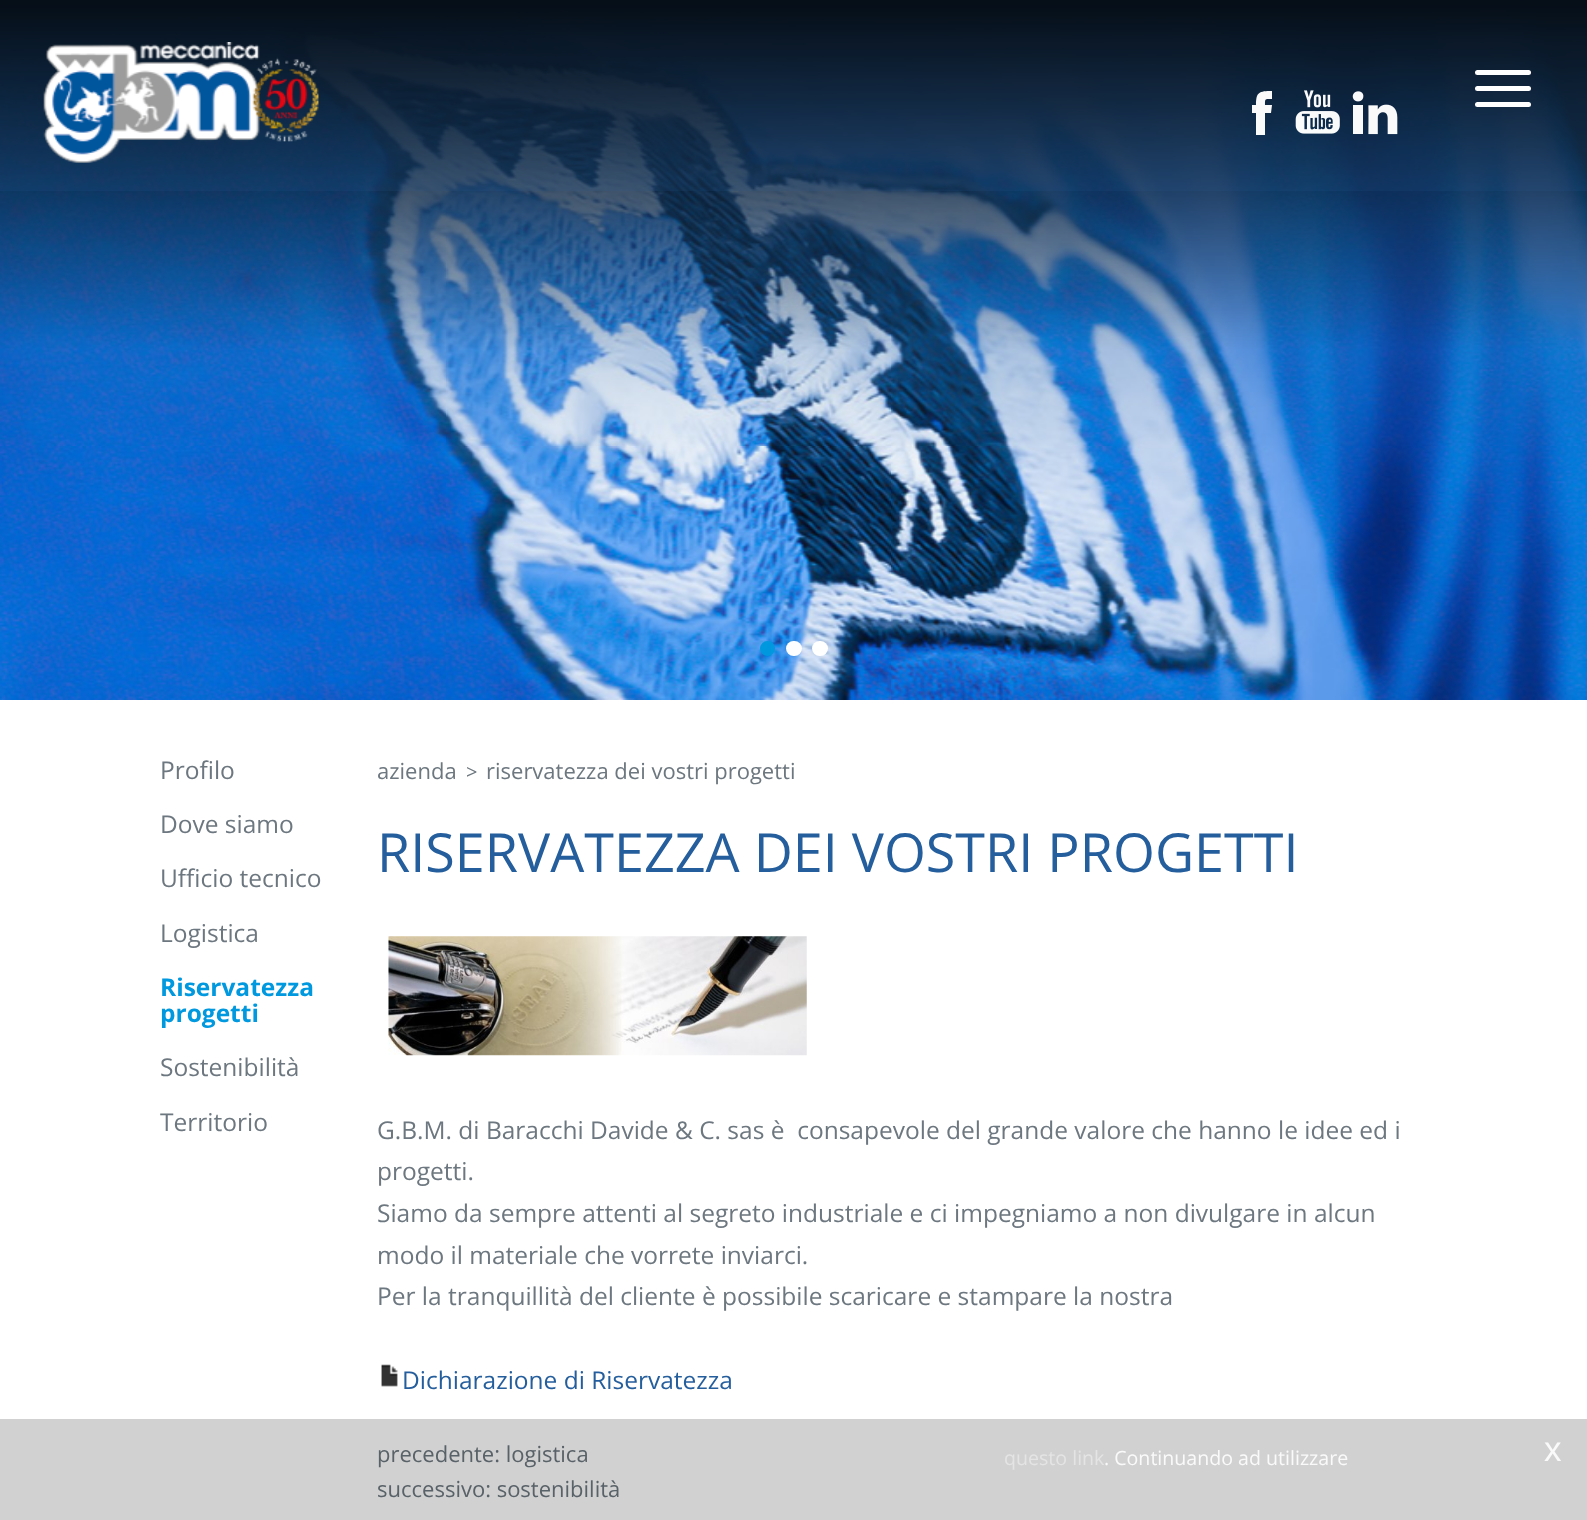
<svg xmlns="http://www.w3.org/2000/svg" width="1587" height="1520">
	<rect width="100%" height="100%" fill="#FFFFFF" />
	<rect x="0" y="1419" width="1587" height="101" fill="#D1D1D1" />
	<image x="0" y="0" width="1587" height="700" href="assets/img1.png" />
	<circle cx="767.5" cy="648.5" r="7.5" fill="#0098DE" fill-opacity="0.99" />
	<rect x="786" y="641" width="16" height="15" rx="7.5" fill="#FFFFFF" fill-opacity="0.99" />
	<rect x="812" y="641" width="16" height="15" rx="7.5" fill="#FFFFFF" fill-opacity="0.99" />
	<rect x="0" y="0" width="1587" height="191" fill="#255E9C" fill-opacity="0.15" />
	<image x="43" y="42" width="276" height="121" href="assets/img2.png" />
	<path d="M1272 105H1265C1265 98 1265 99 1272 99V91C1259 91 1256 92 1256 105H1252V113H1256V135H1265V113H1271Z" fill="#FFFFFF" fill-opacity="0.98" />
	<image x="1295" y="90" width="45" height="44" href="assets/img3.png" />
	<image x="1352" y="91" width="46" height="44" href="assets/img4.png" />
	<rect x="1475" y="70" width="56" height="5" rx="2.5" fill="#FFFFFF" />
	<rect x="1475" y="86" width="56" height="5" rx="2.5" fill="#FFFFFF" />
	<rect x="1475" y="102" width="56" height="5" rx="2.5" fill="#FFFFFF" />
	<g font-family="Open Sans" font-size="24.5" fill="#6D777F">
		<text x="160" y="779">Profilo</text>
		<text x="160" y="833">Dove siamo</text>
		<text x="160" y="887">Ufficio tecnico</text>
		<text x="160" y="942">Logistica</text>
	</g>
	<g font-family="Open Sans" font-size="24.5" font-weight="700" fill="#0098DE">
		<text x="160" y="996">Riservatezza</text>
		<text x="160" y="1022">progetti</text>
	</g>
	<g font-family="Open Sans" font-size="24.5" fill="#6D777F">
		<text x="160" y="1076">Sostenibilità</text>
		<text x="160" y="1131">Territorio</text>
	</g>
	<text x="377" y="779" font-family="Open Sans" font-size="22" fill="#6D777F">azienda</text>
	<text x="466" y="779" font-family="Open Sans" font-size="20" fill="#6D777F">&gt;</text>
	<text x="486" y="779" font-family="Open Sans" font-size="22" fill="#6D777F">riservatezza dei vostri progetti</text>
	<text x="377" y="872" font-family="Open Sans" font-size="53.9" fill="#255E9C">RISERVATEZZA DEI VOSTRI PROGETTI</text>
	<image x="388" y="936" width="419" height="120" href="assets/img5.png" />
	<g font-family="Open Sans" font-size="24.5" fill="#6D777F">
		<text x="377" y="1139" xml:space="preserve">G.B.M. di Baracchi Davide &amp; C. sas è  consapevole del grande valore che hanno le idee ed i</text>
		<text x="377" y="1180">progetti.</text>
		<text x="377" y="1222">Siamo da sempre attenti al segreto industriale e ci impegniamo a non divulgare in alcun</text>
		<text x="377" y="1264">modo il materiale che vorrete inviarci.</text>
		<text x="377" y="1305">Per la tranquillità del cliente è possibile scaricare e stampare la nostra</text>
	</g>
	<image x="381" y="1364" width="17" height="23" href="assets/img6.png" />
	<text x="402" y="1389" font-family="Open Sans" font-size="24.5" fill="#255E9C">Dichiarazione di Riservatezza</text>
	<g font-family="Open Sans" font-size="22" fill="#596268">
		<text x="377" y="1462">precedente: logistica</text>
		<text x="377" y="1497">successivo: sostenibilità</text>
	</g>
	<text x="1004" y="1465" font-family="Open Sans" font-size="19.6" fill="#E4E4E4">questo link</text>
	<text x="1104" y="1465" font-family="Open Sans" font-size="19.6" fill="#FAFAFA">. Continuando ad utilizzare</text>
	<text x="1544" y="1461" font-family="Liberation Sans" font-size="35" fill="#FAFAFA">x</text>
</svg>
